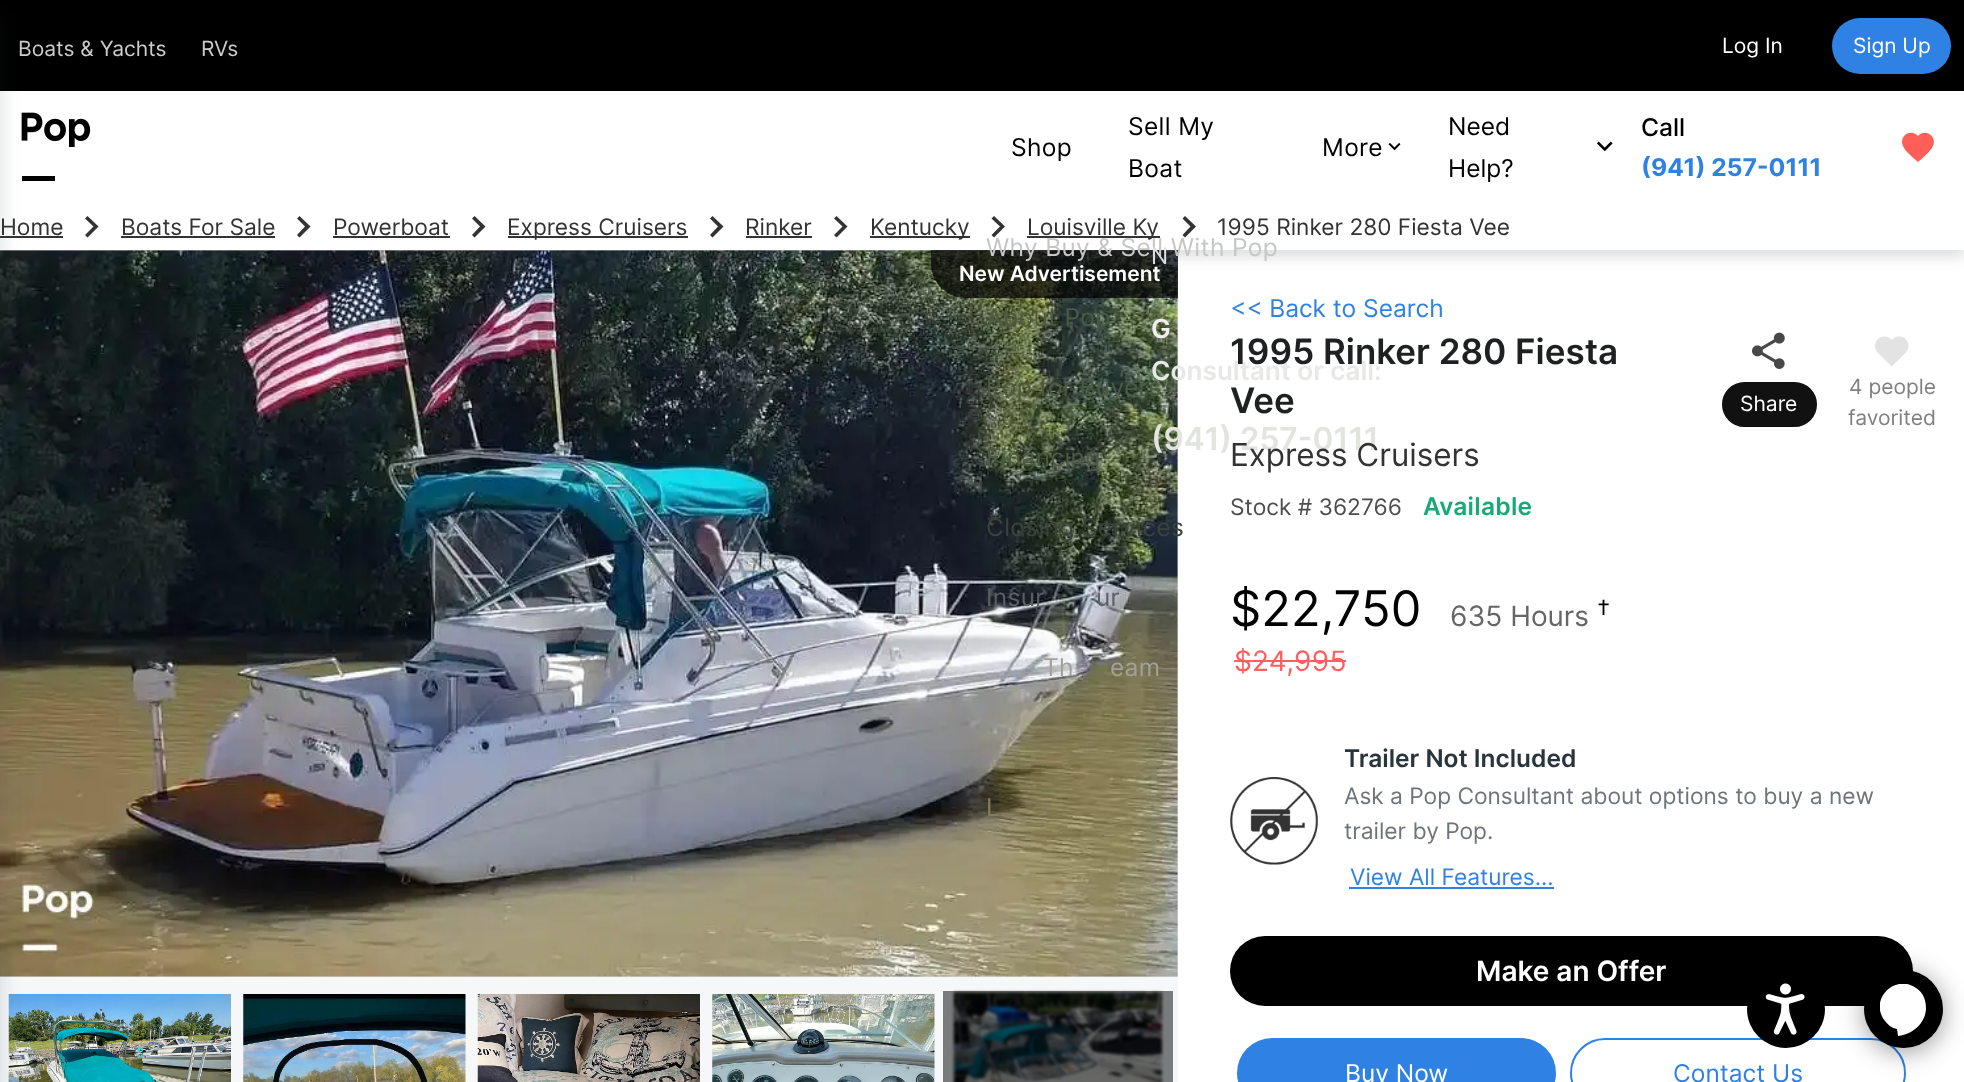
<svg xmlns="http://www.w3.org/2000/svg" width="1964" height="1082">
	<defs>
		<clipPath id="clip1"><rect x="1880" y="984" width="47" height="52" /></clipPath>
	</defs>
	<rect width="100%" height="100%" fill="#FFFFFF" />
	<rect x="0" y="250" width="1178" height="727" fill="#DDDDDD" />
	<image x="0" y="250" width="1178" height="727" href="assets/img4.png" />
	<path d="M931 250H1178V298H966C946.5 298 931 282.5 931 263Z" fill="#000000" fill-opacity="0.7" />
	<rect x="0" y="7" width="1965" height="250" fill="#2A343D" fill-opacity="0.16" filter="blur(7px)" />
	<rect x="0" y="91" width="1964" height="159" fill="#FFFFFF" />
	<rect x="0" y="0" width="1964" height="91" fill="#000000" />
	<g font-family="Inter" font-size="21" fill="#CCCCCC">
		<text x="18" y="56">Boats &amp; Yachts</text>
		<text x="201" y="56">RVs</text>
	</g>
	<text x="1722" y="53" font-family="Inter" font-size="21" fill="#FFFFFF">Log In</text>
	<rect x="1832" y="18" width="119" height="56" rx="28" fill="#2F82E4" />
	<text x="1853" y="53" font-family="Inter" font-size="21" fill="#FFFFFF">Sign Up</text>
	<image x="21" y="112" width="70" height="69" href="assets/img1.png" />
	<rect x="0" y="236" width="63" height="2" fill="#333333" />
	<rect x="0" y="977" width="1178" height="105" fill="#F5F7F9" />
	<image x="8" y="994" width="223" height="88" href="assets/img5.png" />
	<rect x="-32" y="14" width="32" height="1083" fill="#2A343D" fill-opacity="0.16" filter="blur(10.5px)" />
	<g font-family="Inter" font-size="24.5" letter-spacing="0.35" fill="#000000">
		<text x="1011" y="156">Shop</text>
		<text x="1128" y="135">Sell My</text>
		<text x="1128" y="177">Boat</text>
		<text x="1322" y="156">More</text>
	</g>
	<image x="1388" y="142" width="13" height="9" href="assets/img2.png" />
	<path d="M994 216L991.5 218.5L1000 226.5L991.5 235L994 237.5L1005 226.5Z" fill="#333333" />
	<rect x="1027" y="236" width="133" height="2" fill="#333333" />
	<path d="M1185 216L1182.5 218.5L1190.5 226.5L1182.5 235L1185 237.5L1196 226.5Z" fill="#333333" />
	<text x="986" y="256" font-family="Inter" font-size="24.5" letter-spacing="0.35" fill="#C5C6C5">Why Buy &amp; Sell With Pop</text>
	<g font-family="Inter" font-size="24.5" letter-spacing="0.35" fill="#4D5A42">
		<text x="986" y="326">About Pop</text>
		<text x="986" y="396">Pop for Buyers</text>
		<text x="986" y="466">Financing</text>
	</g>
	<text x="986" y="536" font-family="Inter" font-size="24.5" letter-spacing="0.35" fill="#39433C">Closing Services</text>
	<g font-family="Inter" font-size="24.5" letter-spacing="0.35" fill="#5B6063">
		<text x="986" y="606">Insur</text>
		<text x="1096" y="606">ur</text>
	</g>
	<g font-family="Inter" font-size="24.5" letter-spacing="0.35" fill="#A2A199">
		<text x="1043" y="676">Th</text>
		<text x="1110" y="676">eam</text>
	</g>
	<text x="986" y="816" font-family="Inter" font-size="24.5" letter-spacing="0.35" fill="#857D5A">L</text>
	<g font-family="Inter" font-size="24.5" fill="#000000">
		<text x="1448" y="135">Need</text>
		<text x="1448" y="177">Help?</text>
	</g>
	<image x="1597" y="141" width="16" height="11" href="assets/img3.png" />
	<text x="1151" y="264" font-family="Inter" font-size="22.75" fill="#DDDEDF">N</text>
	<text x="1151" y="338" font-family="Inter" font-size="26.25" font-weight="600" fill="#F0F1EE">G</text>
	<text x="1151" y="380" font-family="Inter" font-size="26.25" font-weight="600" fill="#E7E9E6">Consultant or call:</text>
	<text x="1151" y="450" font-family="Inter" font-size="31.5" font-weight="600" fill="#E2E4E0">(941) 257-0111</text>
	<text x="1641" y="136" font-family="Inter" font-size="24.5" font-weight="500" fill="#000000">Call</text>
	<text x="1641" y="176" font-family="Inter" font-size="24.5" font-weight="700" fill="#2F82E4">(941) 257-0111</text>
	<path d="M1918 162C1913 157.5 1905.5 152 1903 146C1898.5 135.5 1911 128 1918 136C1924.5 128 1937.5 135.5 1933 146C1930 152 1923 157.5 1918 162Z" fill="#FF5F56" />
	<text x="0" y="235" font-family="Inter" font-size="22.75" fill="#333333">Home</text>
	<path d="M87.5 216L85 218.5L93.5 226.5L85 235L87.5 237.5L98.5 226.5Z" fill="#333333" />
	<text x="121" y="235" font-family="Inter" font-size="22.75" fill="#333333">Boats For Sale</text>
	<rect x="121" y="236" width="154" height="2" fill="#333333" />
	<path d="M299.5 216L297 218.5L305 226.5L297 235L299.5 237.5L310.5 226.5Z" fill="#333333" />
	<text x="333" y="235" font-family="Inter" font-size="22.75" fill="#333333">Powerboat</text>
	<rect x="333" y="236" width="117" height="2" fill="#333333" />
	<path d="M474.5 216L472 218.5L480 226.5L472 235L474.5 237.5L485.5 226.5Z" fill="#333333" />
	<rect x="508" y="236" width="180" height="2" fill="#333333" />
	<text x="507" y="235" font-family="Inter" font-size="22.75" fill="#333333">Express Cruisers</text>
	<path d="M712.5 216L710 218.5L718 226.5L710 235L712.5 237.5L723.5 226.5Z" fill="#333333" />
	<text x="745" y="235" font-family="Inter" font-size="22.75" fill="#333333">Rinker</text>
	<rect x="746" y="236" width="66" height="2" fill="#333333" />
	<path d="M836.5 216L834 218.5L842.5 226.5L834 235L836.5 237.5L847.5 226.5Z" fill="#333333" />
	<rect x="870" y="236" width="100" height="2" fill="#333333" />
	<g font-family="Inter" font-size="22.75" fill="#333333">
		<text x="870" y="235">Kentucky</text>
		<text x="1027" y="235">Louisville Ky</text>
		<text x="1217" y="235">1995 Rinker 280 Fiesta Vee</text>
	</g>
	<text x="959" y="281" font-family="Inter" font-size="21" font-weight="600" fill="#FFFFFF">New Advertisement</text>
	<image x="243" y="994" width="223" height="88" href="assets/img6.png" />
	<image x="477" y="994" width="223" height="88" href="assets/img7.png" />
	<image x="712" y="994" width="223" height="88" href="assets/img8.png" />
	<image x="951" y="989" width="214" height="93" href="assets/img9.png" />
	<rect x="943" y="991" width="230" height="91" fill="#000000" fill-opacity="0.5" />
	<text x="1230" y="317" font-family="Inter" font-size="24.5" fill="#2F82E4">&lt;&lt; Back to Search</text>
	<g font-family="Inter" font-size="35" font-weight="600" fill="#1E2022">
		<text x="1230" y="364">1995 Rinker 280 Fiesta</text>
		<text x="1230" y="413">Vee</text>
	</g>
	<text x="1230" y="466" font-family="Inter" font-size="31.5" fill="#333333">Express Cruisers</text>
	<text x="1230" y="515" font-family="Inter" font-size="22.75" fill="#4D4D4D">Stock # 362766</text>
	<text x="1423" y="515" font-family="Inter" font-size="24.5" font-weight="600" letter-spacing="0.25" fill="#17AA75">Available</text>
	<image x="1752" y="332" width="33" height="37" href="assets/img10.png" />
	<rect x="1723" y="383" width="93" height="43" rx="21.5" fill="#111111" stroke="#111111" stroke-width="2" />
	<text x="1740" y="411" font-family="Inter" font-size="21" fill="#FFFFFF">Share</text>
	<image x="1875" y="336" width="34" height="31" href="assets/img11.png" />
	<g font-family="Inter" font-size="21" fill="#808080">
		<text x="1849" y="394">4 people</text>
		<text x="1848" y="425">favorited</text>
	</g>
	<text x="1230" y="626" font-family="Inter" font-size="49" fill="#000000">$22,750</text>
	<text x="1234" y="671" font-family="Inter" font-size="28" letter-spacing="0.25" fill="#FE5F5F">$24,995</text>
	<rect x="1234" y="660" width="112" height="2" fill="#FE5F5F" />
	<text x="1450" y="626" font-family="Inter" font-size="28" fill="#666666">635 Hours</text>
	<text x="1597" y="615" font-family="Inter" font-size="21" fill="#000000">†</text>
	<image x="1230" y="777" width="88" height="88" href="assets/img12.png" />
	<text x="1344" y="767" font-family="Inter" font-size="24.5" font-weight="600" fill="#2A343D">Trailer Not Included</text>
	<g font-family="Inter" font-size="22.75" fill="#6D747A">
		<text x="1344" y="804">Ask a Pop Consultant about options to buy a new</text>
		<text x="1344" y="839">trailer by Pop.</text>
	</g>
	<text x="1350" y="885" font-family="Inter" font-size="22.75" fill="#2F82E4">View All Features...</text>
	<rect x="1349" y="887" width="205" height="2" fill="#2F82E4" />
	<rect x="1230" y="936" width="683" height="70" rx="35" fill="#000000" />
	<text x="1476" y="981" font-family="Inter" font-size="28" font-weight="600" fill="#FFFFFF">Make an Offer</text>
	<rect x="1237" y="1038" width="319" height="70" rx="35" fill="#2F82E4" />
	<text x="1345" y="1082" font-family="Inter" font-size="24.5" fill="#FFFFFF">Buy Now</text>
	<rect x="1571" y="1039" width="334" height="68" rx="34" fill="none" stroke="#2F82E4" stroke-width="2" />
	<text x="1673" y="1082" font-family="Inter" font-size="24.5" fill="#2F82E4">Contact Us</text>
	<circle cx="1786" cy="1009" r="39" fill="#000000" />
	<image x="1765" y="983" width="40" height="52" href="assets/img13.png" />
	<rect x="1864" y="973" width="79" height="79" rx="39.5" fill="#000000" fill-opacity="0.4" filter="blur(13px)" />
	<rect x="1864" y="970" width="79" height="78" rx="39" fill="#000000" />
	<g clip-path="url(#clip1)">
		<path d="M1926 1008C1926 1023 1912 1035 1898 1036L1897 1029C1892 1028 1888 1025 1885 1021C1868 1000 1895 973 1916 988C1923 992 1926 1000 1926 1008Z" fill="#FFFFFF" />
	</g>
</svg>
